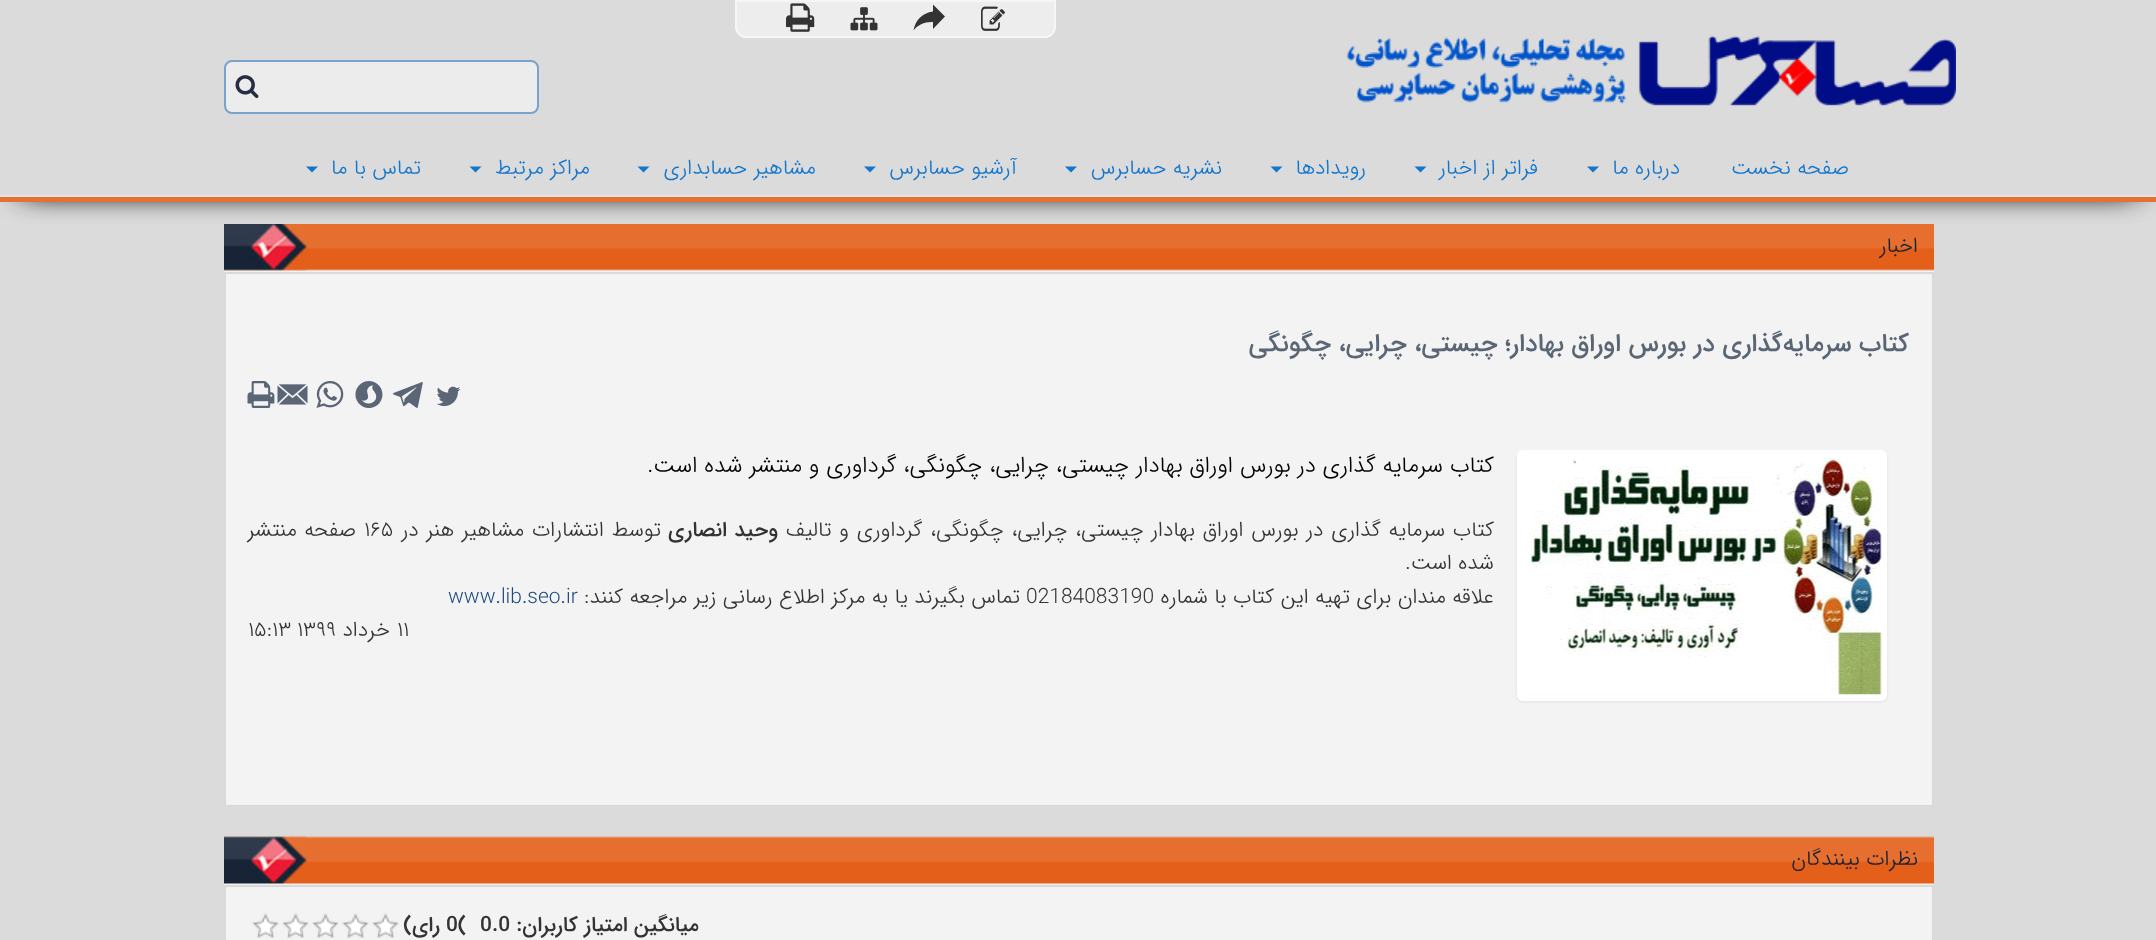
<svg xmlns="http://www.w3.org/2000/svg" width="2156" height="940">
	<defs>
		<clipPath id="clip1"><path d="M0 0H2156V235H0ZM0 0H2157V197H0Z" clip-rule="evenodd" /></clipPath>
	</defs>
	<rect width="100%" height="100%" fill="#DBDBDB" />
	<g clip-path="url(#clip1)">
		<rect x="23" y="38" width="2112" height="151" fill="#000000" filter="blur(15px)" />
		<rect x="23" y="38" width="2112" height="151" fill="#000000" filter="blur(15px)" />
	</g>
	<rect x="0" y="195" width="2156" height="2" fill="#FFFFFF" fill-opacity="0.25" />
	<image x="1346" y="35" width="610" height="71" href="assets/img1.png" />
	<path d="M735 0H1056V27C1056 33 1051 38 1045 38H746C740 38 735 33 735 27Z" fill="#EDEDED" />
	<path d="M736 1H1055V27C1055 32.5 1050.5 37 1045 37H746C740.5 37 736 32.5 736 27Z" fill="none" stroke="#FFFFFF" stroke-opacity="0.5" stroke-width="2" />
	<image x="981" y="6" width="24" height="25" href="assets/img2.png" />
	<path d="M913.5 30.5C915.5 20 922 13 933 11.5V4.5L945 16.5L933 29V22C925 21.5 918 24.5 913.5 30.5Z" fill="#333333" />
	<image x="850" y="7" width="28" height="24" href="assets/img3.png" />
	<image x="786" y="3" width="29" height="29" href="assets/img4.png" />
	<rect x="224" y="60" width="315" height="54" rx="8" fill="#ECECEC" />
	<rect x="225" y="61" width="313" height="52" rx="7" fill="none" stroke="#005BAB" stroke-opacity="0.5" stroke-width="2" />
	<image x="235" y="75" width="24" height="24" href="assets/img5.png" />
	<g font-family="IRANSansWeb" font-size="21" font-weight="300" direction="rtl" fill="#1376CD">
		<text x="1849" y="174">صفحه نخست</text>
		<text x="1680" y="174">درباره ما</text>
	</g>
	<path d="M1587 166.5H1599L1593 172.5Z" fill="#1376CD" />
	<text x="1538" y="174" font-family="IRANSansWeb" font-size="21" font-weight="300" direction="rtl" fill="#1376CD">فراتر از اخبار</text>
	<path d="M1414.5 166.5H1426.5L1420.5 172.5Z" fill="#1376CD" />
	<text x="1366" y="174" font-family="IRANSansWeb" font-size="21" font-weight="300" direction="rtl" fill="#1376CD">رویدادها</text>
	<path d="M1270.5 166.5H1282.5L1276.5 172.5Z" fill="#1376CD" />
	<text x="1222" y="174" font-family="IRANSansWeb" font-size="21" font-weight="300" direction="rtl" fill="#1376CD">نشریه حسابرس</text>
	<path d="M1065 166.5H1077L1071 172.5Z" fill="#1376CD" />
	<text x="1017" y="174" font-family="IRANSansWeb" font-size="21" font-weight="300" direction="rtl" fill="#1376CD">آرشیو حسابرس</text>
	<path d="M864 166.5H876L870 172.5Z" fill="#1376CD" />
	<text x="816" y="174" font-family="IRANSansWeb" font-size="21" font-weight="300" direction="rtl" fill="#1376CD">مشاهیر حسابداری</text>
	<path d="M637.5 166.5H649.5L643.5 172.5Z" fill="#1376CD" />
	<text x="590" y="174" font-family="IRANSansWeb" font-size="21" font-weight="300" direction="rtl" fill="#1376CD">مراکز مرتبط</text>
	<path d="M469.5 166.5H481.5L475.5 172.5Z" fill="#1376CD" />
	<text x="421" y="174" font-family="IRANSansWeb" font-size="21" font-weight="300" direction="rtl" fill="#1376CD">تماس با ما</text>
	<path d="M306 166.5H318L312 172.5Z" fill="#1376CD" />
	<rect x="0" y="197" width="2156" height="5" fill="#E67030" />
	<rect x="224" y="269" width="1710" height="536" fill="#F3F3F3" />
	<image x="224" y="224" width="1710" height="47" href="assets/img6.png" />
	<text x="1918" y="252" font-family="IRANSansWeb" font-size="21" font-weight="300" direction="rtl" fill="#152234">اخبار</text>
	<rect x="225" y="273" width="1708" height="533" fill="none" stroke="#D9D9D9" stroke-width="2" />
	<text x="1909" y="351" font-family="IRANSansWeb" font-size="25.5" font-weight="500" direction="rtl" fill="#5A6575">کتاب سرمایه‌گذاری در بورس اوراق بهادار؛ چیستی، چرایی، چگونگی</text>
	<image x="436" y="386" width="25" height="21" href="assets/img7.png" />
	<image x="393" y="382" width="30" height="26" href="assets/img8.png" />
	<image x="355" y="381" width="28" height="27" href="assets/img9.png" />
	<image x="316" y="381" width="28" height="27" href="assets/img10.png" />
	<image x="277" y="384" width="31" height="21" href="assets/img11.png" />
	<image x="247" y="381" width="28" height="27" href="assets/img12.png" />
	<rect x="1517" y="452" width="370" height="250" rx="6" fill="#000000" fill-opacity="0.07" filter="blur(1.5px)" />
	<rect x="1517" y="450" width="370" height="251" rx="6" fill="#FFFFFF" />
	<image x="1527" y="457" width="355" height="238" href="assets/img13.png" />
	<text x="1494" y="472" font-family="IRANSansWeb" font-size="22.5" font-weight="300" direction="rtl" fill="#000000">کتاب سرمایه گذاری در بورس اوراق بهادار چیستی، چرایی، چگونگی، گرداوری و منتشر شده است.</text>
	<text x="1494" y="536" word-spacing="1.4" font-family="IRANSansWeb" font-size="21" font-weight="300" direction="rtl" fill="#333333">کتاب سرمایه گذاری در بورس اوراق بهادار چیستی، چرایی، چگونگی، گرداوری و تالیف</text>
	<text x="778" y="536" word-spacing="1" font-family="IRANSansWeb" font-size="21" font-weight="500" direction="rtl" fill="#333333">وحید انصاری</text>
	<text x="661" y="536" word-spacing="1.4" font-family="IRANSansWeb" font-size="21" font-weight="300" direction="rtl" fill="#333333">توسط انتشارات مشاهیر هنر در</text>
	<text x="364" y="536" font-family="IRANSansWeb" font-size="21" font-weight="300" fill="#333333">۱۶۵</text>
	<g font-family="IRANSansWeb" font-size="21" font-weight="300" direction="rtl" fill="#333333">
		<text x="356" y="536" word-spacing="1">صفحه منتشر</text>
		<text x="1494" y="569">شده است.</text>
		<text x="1494" y="603">علاقه مندان برای تهیه این کتاب با شماره</text>
	</g>
	<text x="1026" y="603" font-family="IRANSansWeb" font-size="21" font-weight="300" fill="#333333">02184083190</text>
	<text x="1020" y="603" font-family="IRANSansWeb" font-size="21" font-weight="300" direction="rtl" fill="#333333">تماس بگیرند یا به مرکز اطلاع رسانی زیر مراجعه کنند:</text>
	<text x="448" y="603" font-family="IRANSansWeb" font-size="21" font-weight="300" fill="#1F497D">www.lib.seo.ir</text>
	<text x="397" y="636" font-family="IRANSansWeb" font-size="21" font-weight="300" fill="#333333">۱۱</text>
	<text x="390" y="636" font-family="IRANSansWeb" font-size="21" font-weight="300" direction="rtl" fill="#333333">خرداد</text>
	<g font-family="IRANSansWeb" font-size="21" font-weight="300" fill="#333333">
		<text x="297" y="636">۱۳۹۹</text>
		<text x="248" y="636">۱۵:۱۳</text>
	</g>
	<rect x="224" y="837" width="1710" height="103" fill="#F3F3F3" />
	<image x="224" y="836" width="1710" height="48" href="assets/img14.png" />
	<text x="1918" y="865" font-family="IRANSansWeb" font-size="21" font-weight="300" direction="rtl" fill="#152234">نظرات بینندگان</text>
	<rect x="225" y="886" width="1708" height="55" fill="none" stroke="#D9D9D9" stroke-width="2" />
	<text x="699" y="931" font-family="IRANSansWeb" font-size="21" font-weight="500" direction="rtl" fill="#333333">میانگین امتیاز کاربران:</text>
	<g font-family="IRANSansWeb" font-size="21" font-weight="500" fill="#333333">
		<text x="480" y="931">0.0</text>
		<text x="446" y="931">0(</text>
	</g>
	<text x="440" y="931" font-family="IRANSansWeb" font-size="21" font-weight="500" direction="rtl" fill="#333333">رای)</text>
	<image x="372" y="913" width="27" height="25" href="assets/img15.png" />
	<image x="342" y="913" width="27" height="25" href="assets/img15.png" />
	<image x="312" y="913" width="27" height="25" href="assets/img15.png" />
	<image x="282" y="913" width="27" height="25" href="assets/img15.png" />
	<image x="252" y="913" width="27" height="25" href="assets/img15.png" />
</svg>
